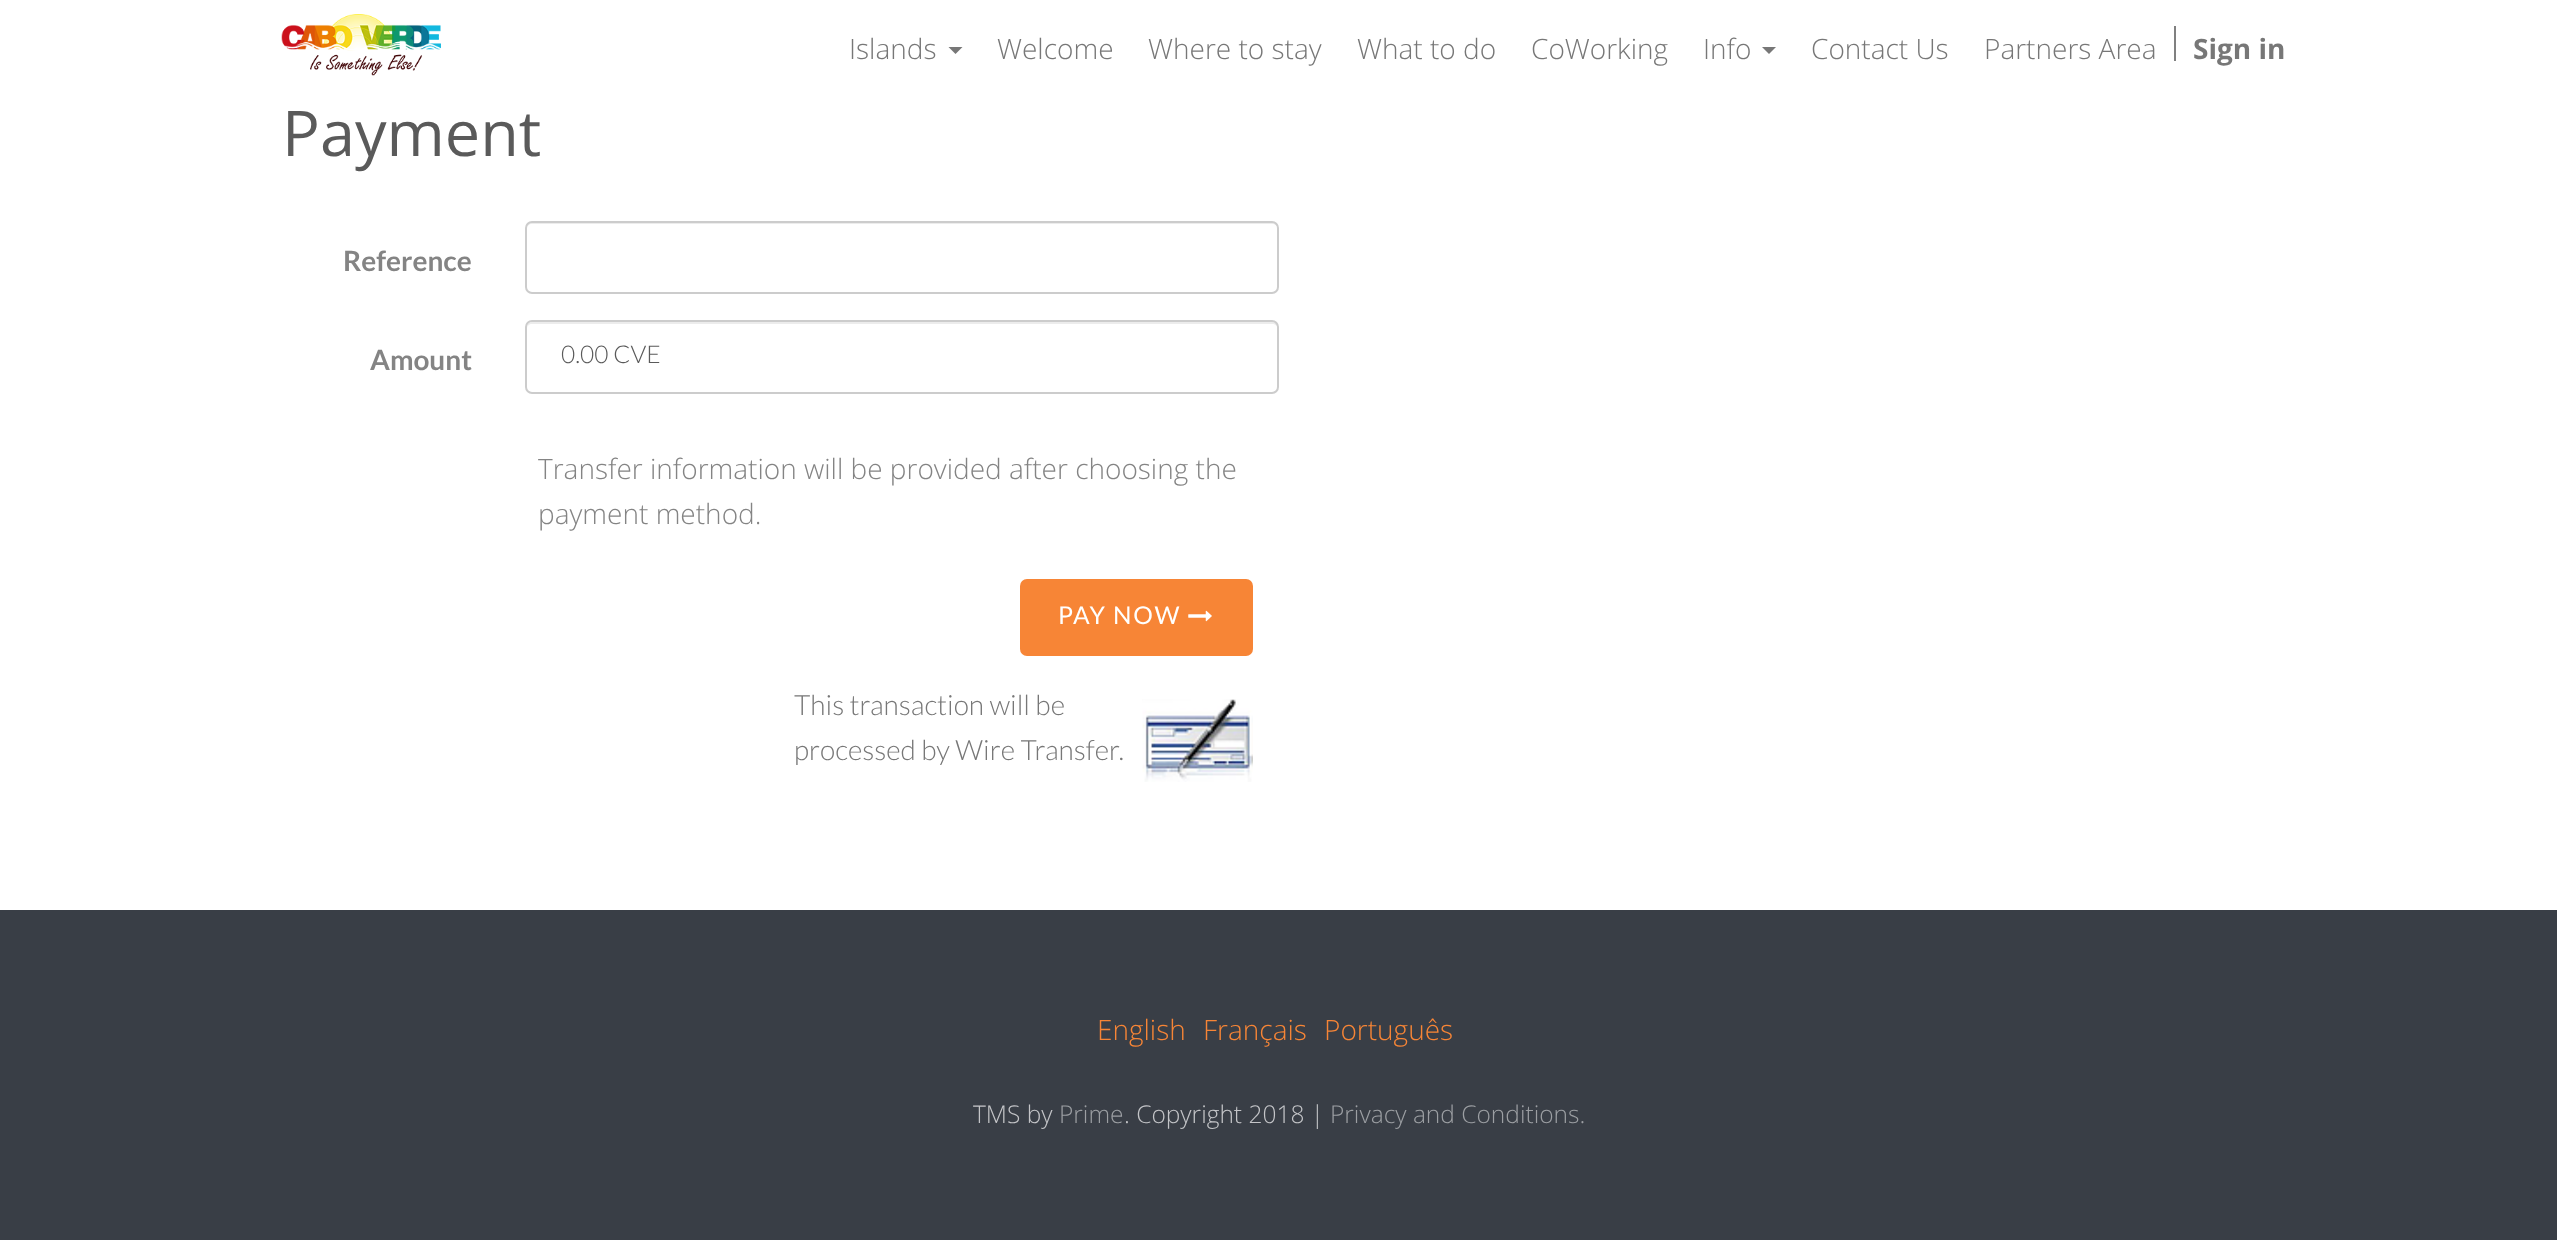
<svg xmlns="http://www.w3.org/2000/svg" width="2557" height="1240">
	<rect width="100%" height="100%" fill="#FFFFFF" />
	<image x="281" y="14" width="160" height="62" href="assets/img1.png" />
	<text x="849" y="59" font-family="Open Sans" font-size="28" font-weight="300" fill="#777777">Islands</text>
	<path d="M948.5 47H962.5L955.5 54Z" fill="#777777" />
	<g font-family="Open Sans" font-size="28" font-weight="300" fill="#777777">
		<text x="997" y="59">Welcome</text>
		<text x="1148" y="59">Where to stay</text>
		<text x="1357" y="59">What to do</text>
		<text x="1531" y="59">CoWorking</text>
		<text x="1703" y="59">Info</text>
	</g>
	<path d="M1762 47H1776L1769 54Z" fill="#777777" />
	<g font-family="Open Sans" font-size="28" font-weight="300" fill="#777777">
		<text x="1811" y="59">Contact Us</text>
		<text x="1984" y="59">Partners Area</text>
	</g>
	<rect x="2174" y="26" width="2" height="35" fill="#808080" />
	<text x="2193" y="59" font-family="Open Sans" font-size="28" font-weight="700" fill="#777777">Sign in</text>
	<text x="282" y="156" font-family="Open Sans" font-size="63" fill="#5A5A5A">Payment</text>
	<text x="343" y="271" font-family="Lato" font-size="28" font-weight="700" fill="#848484">Reference</text>
	<path d="M532 224H1272C1275 224 1278 226 1278 229C1278 226 1277 222 1273 222H532C528 222 527 226 527 229C527 226 529 224 532 224Z" fill="#ECECEC" />
	<rect x="526" y="222" width="752" height="71" rx="6" fill="none" stroke="#CCCCCC" stroke-width="2" />
	<text x="370" y="370" font-family="Lato" font-size="28" font-weight="700" fill="#848484">Amount</text>
	<path d="M532 324H1272C1275 324 1278 326 1278 329C1278 326 1277 322 1273 322H532C528 322 527 326 527 329C527 326 529 324 532 324Z" fill="#ECECEC" />
	<rect x="526" y="321" width="752" height="72" rx="6" fill="none" stroke="#CCCCCC" stroke-width="2" />
	<text x="561" y="363" font-family="Lato" font-size="24.5" font-weight="300" fill="#5A5A5A">0.00 CVE</text>
	<g font-family="Open Sans" font-size="28" font-weight="300" fill="#848484">
		<text x="538" y="479">Transfer information will be provided after choosing the</text>
		<text x="538" y="524">payment method.</text>
	</g>
	<rect x="1020" y="579" width="233" height="77" rx="7" fill="#F78536" />
	<text x="1058" y="624" font-family="Lato" font-size="24.5" letter-spacing="1.75" fill="#FFFFFF">PAY NOW</text>
	<image x="1188" y="610" width="24" height="12" href="assets/img2.png" />
	<text x="794" y="715" font-family="Lato" font-size="28" font-weight="300" fill="#777777">This transaction will be</text>
	<image x="1142" y="699" width="111" height="83" href="assets/img3.png" />
	<text x="794" y="760" font-family="Lato" font-size="28" font-weight="300" fill="#777777">processed by Wire Transfer.</text>
	<rect x="0" y="910" width="2557" height="330" fill="#393E46" />
	<g font-family="Open Sans" font-size="28" font-weight="300" fill="#F78536">
		<text x="1097" y="1040">English</text>
		<text x="1203" y="1040">Français</text>
		<text x="1324" y="1040">Português</text>
	</g>
	<text x="973" y="1123" font-family="Open Sans" font-size="24.5" font-weight="300" fill="#C4C5C8">TMS by</text>
	<text x="1059" y="1123" font-family="Open Sans" font-size="24.5" font-weight="300" fill="#9C9FA3">Prime</text>
	<text x="1124" y="1123" font-family="Open Sans" font-size="24.5" font-weight="300" fill="#C4C5C8">. Copyright 2018 |</text>
	<text x="1330" y="1123" font-family="Open Sans" font-size="24.5" font-weight="300" fill="#9C9FA3">Privacy and Conditions.</text>
</svg>
